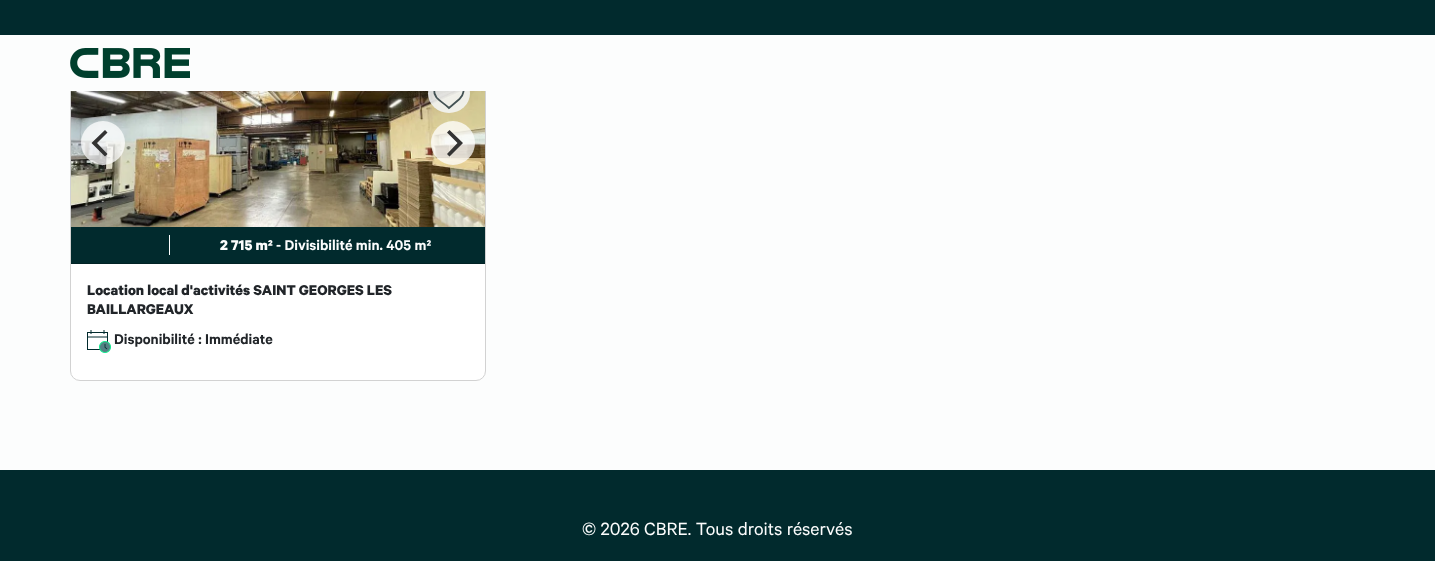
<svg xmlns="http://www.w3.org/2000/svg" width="1435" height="561">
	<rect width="100%" height="100%" fill="#FCFDFD" />
	<rect x="70.5" y="58.5" width="415" height="322" rx="9.5" fill="#FFFFFF" stroke="#D2D2D2" />
	<image x="71" y="91" width="414" height="136" href="assets/img2.png" />
	<ellipse cx="449" cy="93.5" rx="21" ry="19.5" fill="#F5F7F8" fill-opacity="0.85" />
	<path d="M461 84.5C457 82 451.5 83 449 87C443 78 428.5 86.5 436.5 97.5C440 101.5 445 104 449 108L459.5 99C463.5 95.5 465.5 88.5 461 84.5Z" fill="none" stroke="#435254" stroke-width="1.8" />
	<rect x="70" y="58" width="416" height="33" fill="#FCFDFD" />
	<rect x="0" y="0" width="1435" height="35" fill="#012A2D" />
	<image x="70" y="48" width="120" height="30" href="assets/img1.png" />
	<circle cx="103" cy="143" r="22" fill="#FFFFFF" fill-opacity="0.75" />
	<path d="M91.5 143L105 156.5L107.5 154L97 143L107.5 132.5L105 130Z" fill="#333333" />
	<circle cx="453" cy="143" r="22" fill="#FFFFFF" fill-opacity="0.75" />
	<path d="M463 143L449.5 130L447 132.5L457.5 143L447 154L449.5 156.5Z" fill="#333333" />
	<rect x="71" y="227" width="414" height="36" fill="#012A2D" />
	<rect x="71" y="263" width="414" height="1" fill="#012325" />
	<rect x="169" y="235" width="1" height="20" fill="#FCFDFD" />
	<text x="220" y="250" font-family="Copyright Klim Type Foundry" font-size="16" font-weight="700" fill="#FCFDFD">2 715 m²</text>
	<text x="276" y="250" font-family="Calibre" font-size="16" font-weight="600" fill="#FCFDFD">- Divisibilité min. 405 m²</text>
	<g font-family="Copyright Klim Type Foundry" font-size="16" font-weight="700" fill="#212529">
		<text x="87" y="295">Location local d'activités SAINT GEORGES LES</text>
		<text x="87" y="314">BAILLARGEAUX</text>
	</g>
	<image x="87" y="330" width="24" height="23" href="assets/img3.png" />
	<text x="114" y="344" font-family="Calibre" font-size="16" font-weight="600" fill="#212529">Disponibilité : Immédiate</text>
	<rect x="0" y="470" width="1435" height="91" fill="#012A2D" />
	<text x="582" y="535" font-family="Copyright Klim Type Foundry" font-size="20" fill="#FCFDFD">© 2026 CBRE. Tous droits réservés</text>
</svg>
